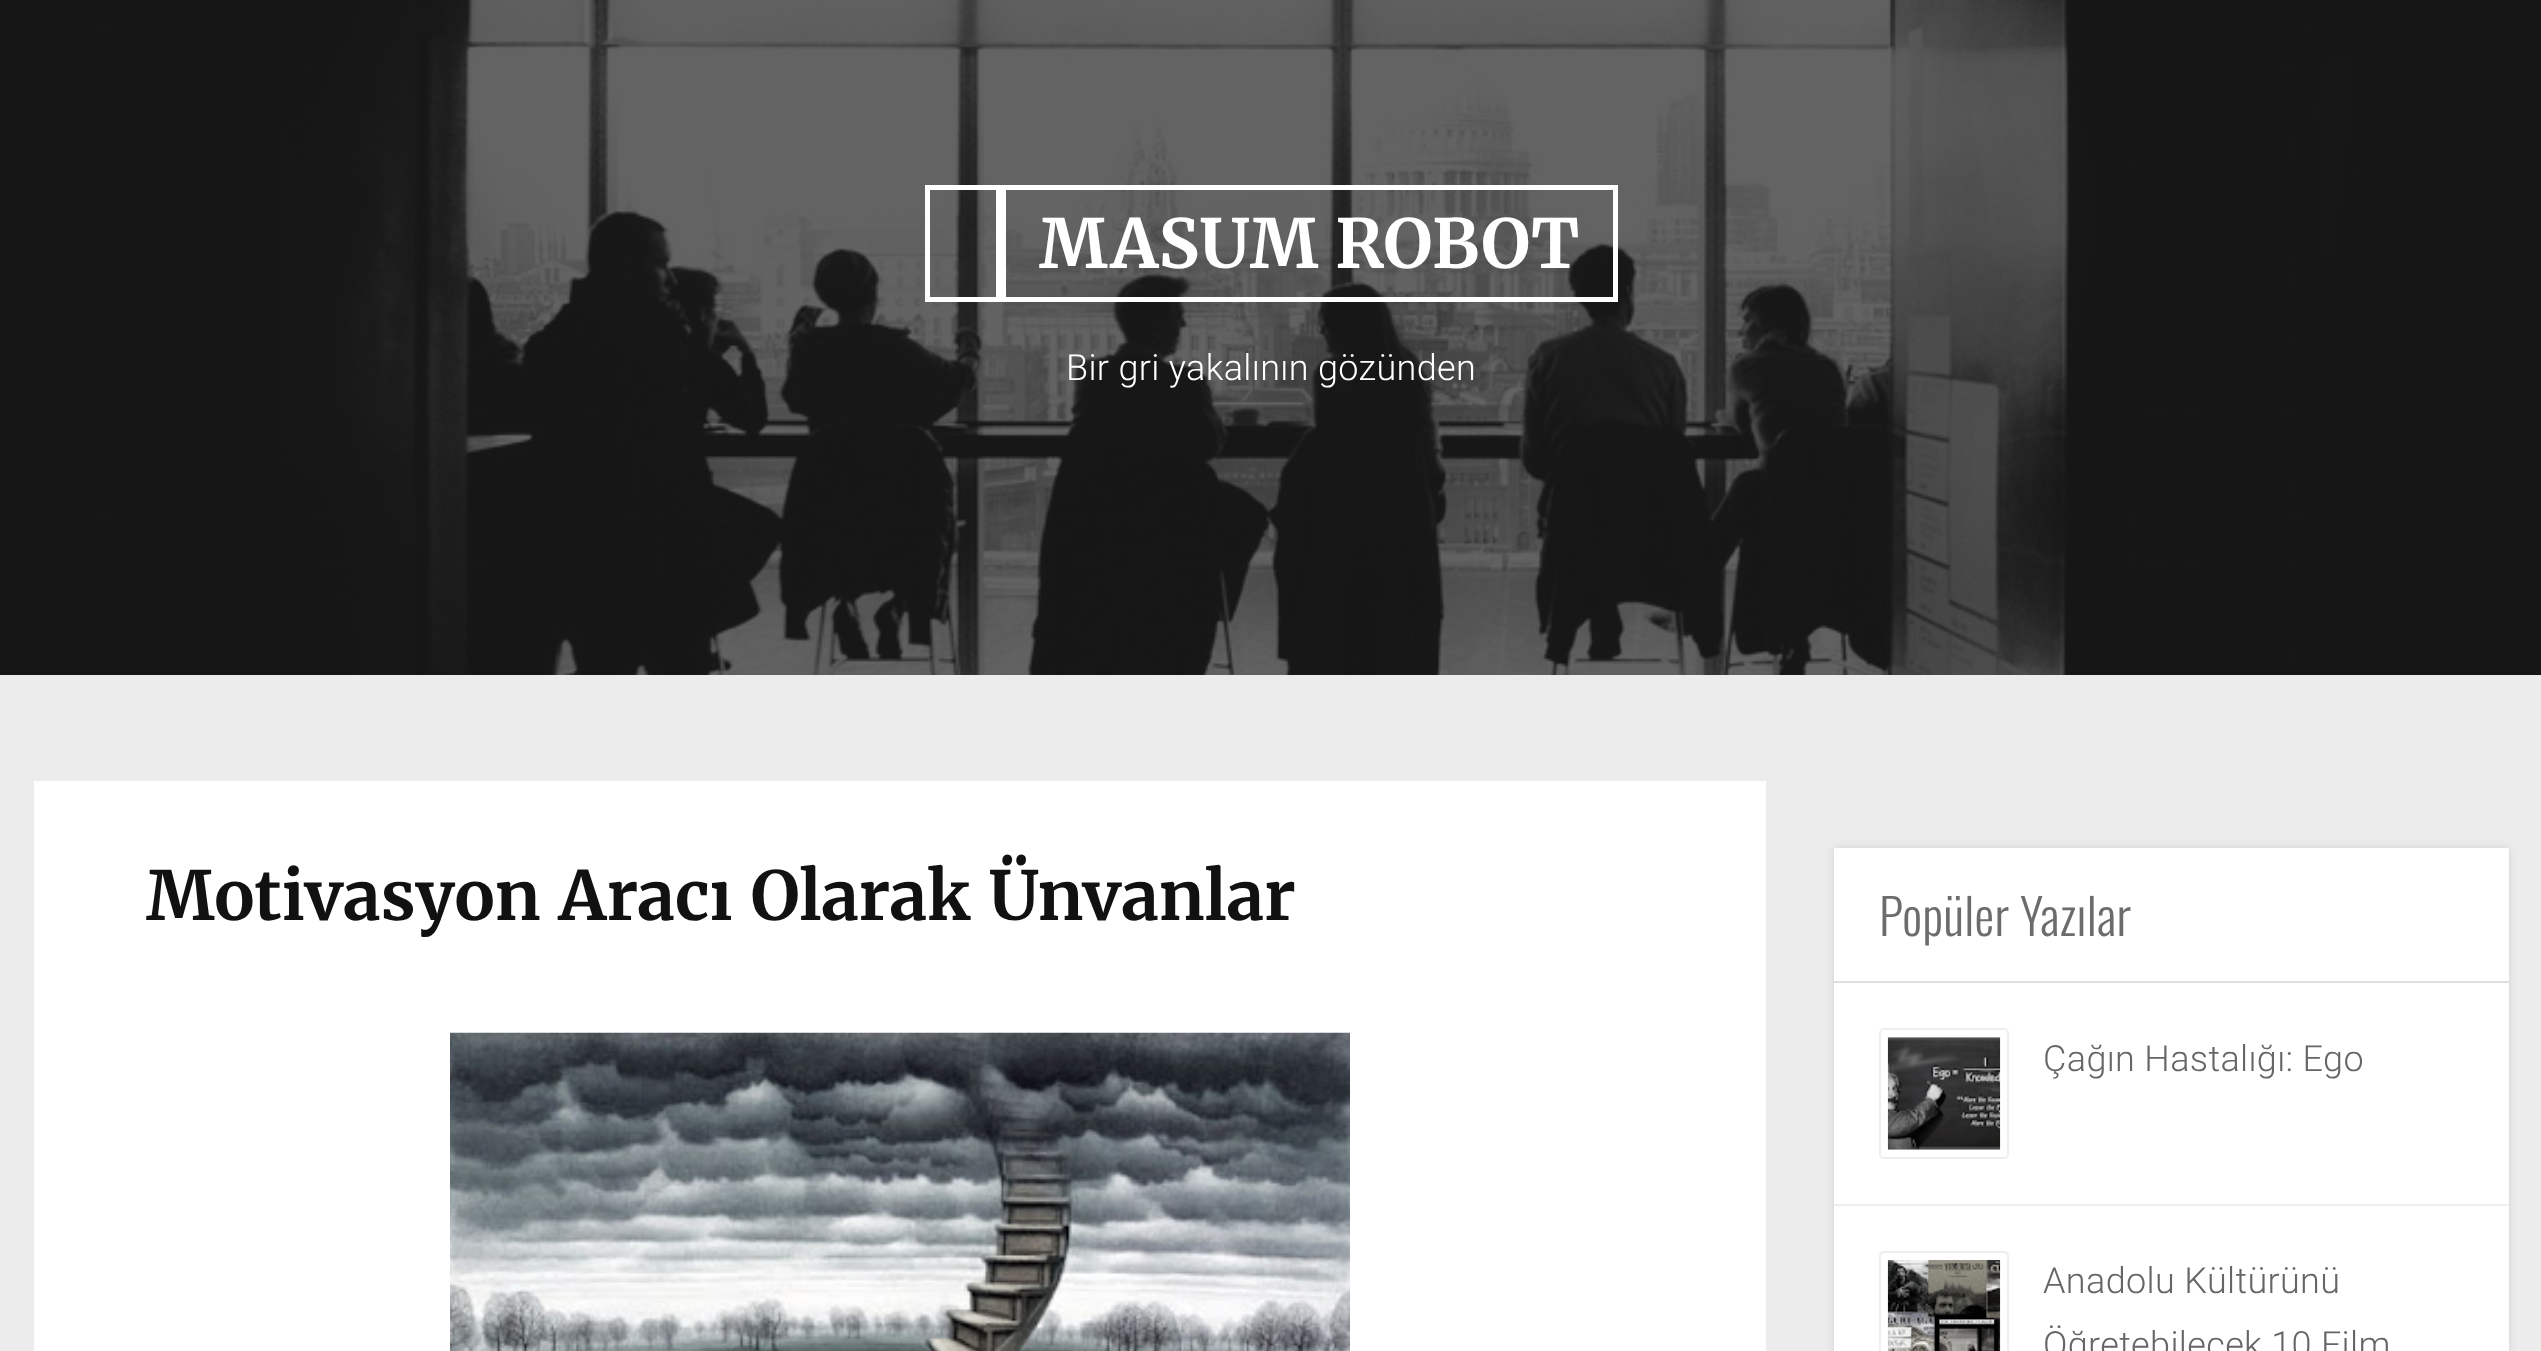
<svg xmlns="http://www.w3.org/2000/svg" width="2541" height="1351">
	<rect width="100%" height="100%" fill="#ECECEC" />
	<image x="0" y="0" width="2541" height="675" href="assets/img1.png" />
	<rect x="927.5" y="187.5" width="71" height="112" fill="none" stroke="#FFFFFF" stroke-width="5" />
	<rect x="1003.5" y="187.5" width="612" height="112" fill="none" stroke="#FFFFFF" stroke-width="5" />
	<text x="1039" y="268" font-family="Merriweather" font-size="67.5" font-weight="700" letter-spacing="0.35" fill="#FFFFFF">MASUM ROBOT</text>
	<text x="1066" y="380" font-family="Roboto" font-size="36" font-weight="300" letter-spacing="0.35" fill="#FFFFFF">Bir gri yakalının gözünden</text>
	<rect x="34" y="781" width="1732" height="570" fill="#FFFFFF" />
	<text x="146" y="920" word-spacing="2" font-family="Merriweather" font-size="67.5" font-weight="700" fill="#111111">Motivasyon Aracı Olarak Ünvanlar</text>
	<image x="450" y="1032" width="900" height="319" href="assets/img2.png" />
	<rect x="1834" y="848" width="675" height="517" fill="#000000" fill-opacity="0.1" filter="blur(4.5px)" />
	<rect x="1834" y="848" width="675" height="503" fill="#FFFFFF" />
	<rect x="1834" y="981" width="675" height="2" fill="#DEDEDE" />
	<text x="1879" y="936" font-family="Oswald" font-size="49.5" font-weight="300" letter-spacing="0.35" fill="#6C6C6C">Popüler Yazılar</text>
	<rect x="1834" y="1204" width="675" height="2" fill="#EEEEEE" />
	<rect x="1880" y="1029" width="128" height="129" rx="4" fill="none" stroke="#EEEEEE" stroke-width="2" />
	<image x="1887" y="1037" width="114" height="113" href="assets/img3.png" />
	<text x="2043" y="1071" font-family="Roboto" font-size="36" font-weight="300" letter-spacing="0.35" fill="#666666">Çağın Hastalığı: Ego</text>
	<rect x="1880" y="1252" width="128" height="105" rx="4" fill="none" stroke="#EEEEEE" stroke-width="2" />
	<image x="1887" y="1260" width="114" height="91" href="assets/img4.png" />
	<g font-family="Roboto" font-size="36" font-weight="300" letter-spacing="0.35" fill="#666666">
		<text x="2043" y="1293">Anadolu Kültürünü</text>
		<text x="2043" y="1357">Öğretebilecek 10 Film</text>
	</g>
</svg>
